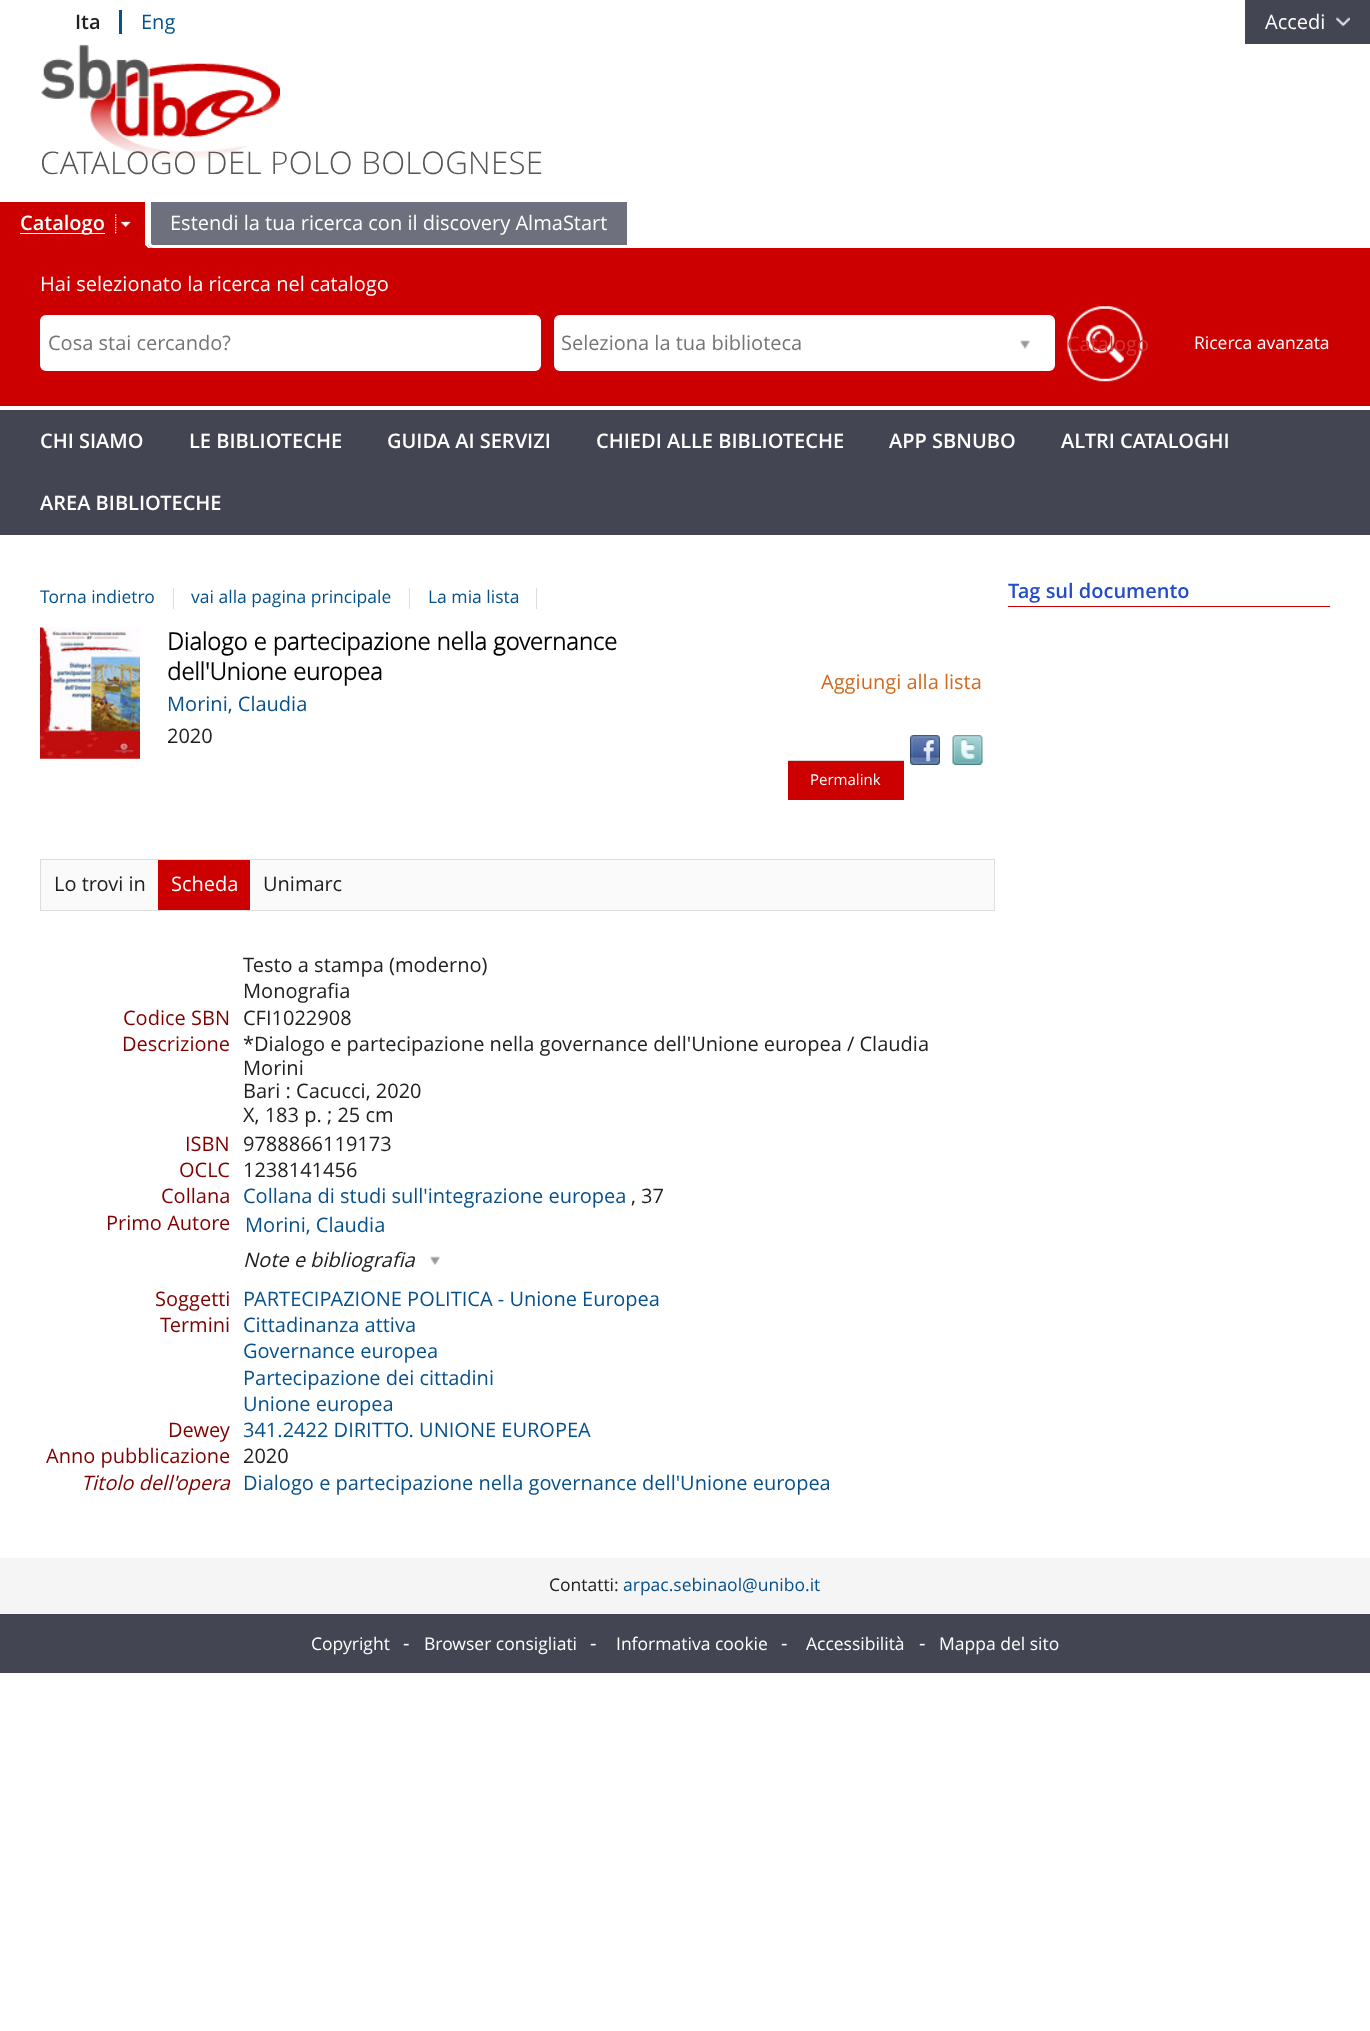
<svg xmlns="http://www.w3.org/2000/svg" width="1370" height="2031">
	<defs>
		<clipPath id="clip1"><rect x="0" y="201" width="1370" height="47" /></clipPath>
	</defs>
	<rect width="100%" height="100%" fill="#FFFFFF" />
	<text x="75" y="29" font-family="Open Sans" font-size="20" font-weight="600" fill="#202020">Ita</text>
	<rect x="119" y="10" width="3" height="24" fill="#06508C" />
	<text x="141" y="29" font-family="Open Sans" font-size="20" fill="#06508C">Eng</text>
	<rect x="1245" y="0" width="125" height="44" fill="#434553" />
	<image x="1336" y="17" width="14" height="10" href="assets/img1.png" />
	<text x="1265" y="29" font-family="Open Sans" font-size="20" fill="#FFFFFF">Accedi</text>
	<image x="41" y="44" width="239" height="115" href="assets/img2.png" />
	<text x="40" y="174" font-family="Open Sans" font-size="31.25" font-weight="300" letter-spacing="0.3" fill="#555555">CATALOGO DEL POLO BOLOGNESE</text>
	<rect x="0" y="202" width="148" height="46" fill="#CC0000" />
	<g clip-path="url(#clip1)">
		<path d="M148 199V248L145 245V201Z" fill="#FFFFFF" />
	</g>
	<path d="M148 248H-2L0 245H145Z" fill="#CC0000" />
	<rect x="20" y="233" width="85" height="1" fill="#FFFFFF" />
	<text x="20" y="230" font-family="Open Sans" font-size="20" font-weight="600" fill="#FFFFFF">Catalogo</text>
	<image x="115" y="214" width="16" height="20" href="assets/img3.png" />
	<path d="M148 201H630V248H153C150 248 148 246 148 243Z" fill="#6E707E" />
	<g clip-path="url(#clip1)">
		<path d="M149.5 200.5H628.5V246.5H153C151 246.5 149.5 245 149.5 243Z" fill="none" stroke="#FFFFFF" stroke-width="3" />
	</g>
	<text x="170" y="230" font-family="Open Sans" font-size="20" fill="#FFFFFF">Estendi la tua ricerca con il discovery AlmaStart</text>
	<rect x="0" y="248" width="1370" height="158" fill="#CC0000" />
	<text x="40" y="291" font-family="Open Sans" font-size="20" fill="#FFFFFF">Hai selezionato la ricerca nel catalogo</text>
	<rect x="40" y="315" width="501" height="56" rx="6" fill="#FFFFFF" />
	<text x="48" y="350" font-family="Open Sans" font-size="20" fill="#757575">Cosa stai cercando?</text>
	<rect x="554" y="315" width="501" height="56" rx="6" fill="#FFFFFF" />
	<text x="561" y="350" font-family="Open Sans" font-size="20" fill="#757575">Seleziona la tua biblioteca</text>
	<image x="1020" y="340" width="11" height="9" href="assets/img4.png" />
	<image x="1067" y="306" width="76" height="76" href="assets/img5.png" />
	<text x="1067" y="351" font-family="Open Sans" font-size="20" fill="#D63535">Catalogo</text>
	<text x="1194" y="349" font-family="Open Sans" font-size="17.5" fill="#FFFFFF">Ricerca avanzata</text>
	<rect x="0" y="410" width="1370" height="125" fill="#434553" />
	<g font-family="Open Sans" font-size="20" font-weight="600" fill="#FFFFFF">
		<text x="40" y="448">CHI SIAMO</text>
		<text x="189" y="448">LE BIBLIOTECHE</text>
		<text x="387" y="448">GUIDA AI SERVIZI</text>
		<text x="596" y="448">CHIEDI ALLE BIBLIOTECHE</text>
		<text x="889" y="448">APP SBNUBO</text>
		<text x="1061" y="448">ALTRI CATALOGHI</text>
		<text x="40" y="510">AREA BIBLIOTECHE</text>
	</g>
	<text x="40" y="603" font-family="Open Sans" font-size="17.5" fill="#06508C">Torna indietro</text>
	<rect x="173" y="588" width="1" height="21" fill="#DDDDDD" />
	<text x="191" y="603" font-family="Open Sans" font-size="17.5" fill="#06508C">vai alla pagina principale</text>
	<rect x="409" y="588" width="1" height="21" fill="#DDDDDD" />
	<text x="428" y="603" font-family="Open Sans" font-size="17.5" fill="#06508C">La mia lista</text>
	<rect x="536" y="588" width="1" height="21" fill="#DDDDDD" />
	<image x="40" y="627" width="100" height="132" href="assets/img6.png" />
	<g font-family="Open Sans" font-size="23.75" font-weight="700" fill="#000000">
		<text x="167" y="650">Dialogo e partecipazione nella governance</text>
		<text x="167" y="680">dell'Unione europea</text>
	</g>
	<text x="167" y="711" font-family="Open Sans" font-size="20" fill="#06508C">Morini, Claudia</text>
	<text x="821" y="689" font-family="Open Sans" font-size="20" fill="#D2691E">Aggiungi alla lista</text>
	<image x="910" y="735" width="30" height="30" href="assets/img7.png" />
	<image x="952" y="735" width="31" height="30" href="assets/img8.png" />
	<rect x="788" y="760" width="116" height="1" fill="#D3D3D3" />
	<rect x="788" y="761" width="116" height="39" fill="#CC0000" />
	<text x="810" y="785" font-family="Open Sans" font-size="15" fill="#FFFFFF">Permalink</text>
	<text x="167" y="743" font-family="Open Sans" font-size="20" fill="#202020">2020</text>
	<rect x="40.5" y="859.5" width="954" height="51" fill="#FAFAFA" stroke="#DDDDDD" />
	<text x="54" y="891" font-family="Open Sans" font-size="20" fill="#202020">Lo trovi in</text>
	<rect x="158" y="860" width="92" height="50" fill="#CC0000" />
	<text x="171" y="891" font-family="Open Sans" font-size="20" fill="#FFFFFF">Scheda</text>
	<g font-family="Open Sans" font-size="20" fill="#202020">
		<text x="263" y="891">Unimarc</text>
		<text x="243" y="972">Testo a stampa (moderno)</text>
		<text x="243" y="998">Monografia</text>
	</g>
	<text x="123" y="1025" font-family="Open Sans" font-size="20" fill="#800000">Codice SBN</text>
	<text x="243" y="1025" font-family="Open Sans" font-size="20" fill="#202020">CFI1022908</text>
	<text x="122" y="1051" font-family="Open Sans" font-size="20" fill="#800000">Descrizione</text>
	<g font-family="Open Sans" font-size="20" fill="#202020">
		<text x="243" y="1051">*Dialogo e partecipazione nella governance dell'Unione europea / Claudia</text>
		<text x="243" y="1075">Morini</text>
		<text x="243" y="1098">Bari : Cacucci, 2020</text>
		<text x="243" y="1122">X, 183 p. ; 25 cm</text>
	</g>
	<text x="185" y="1151" font-family="Open Sans" font-size="20" fill="#800000">ISBN</text>
	<text x="243" y="1151" font-family="Open Sans" font-size="20" fill="#202020">9788866119173</text>
	<text x="179" y="1177" font-family="Open Sans" font-size="20" fill="#800000">OCLC</text>
	<text x="243" y="1177" font-family="Open Sans" font-size="20" fill="#202020">1238141456</text>
	<text x="161" y="1203" font-family="Open Sans" font-size="20" fill="#800000">Collana</text>
	<text x="243" y="1203" font-family="Open Sans" font-size="20" fill="#06508C">Collana di studi sull'integrazione europea</text>
	<text x="631" y="1203" font-family="Open Sans" font-size="20" fill="#202020">, 37</text>
	<text x="106" y="1230" font-family="Open Sans" font-size="20" fill="#800000">Primo Autore</text>
	<text x="245" y="1232" font-family="Open Sans" font-size="20" fill="#06508C">Morini, Claudia</text>
	<image x="430" y="1256" width="10" height="9" href="assets/img9.png" />
	<text x="243" y="1267" font-family="Open Sans" font-size="20" font-style="italic" fill="#202020">Note e bibliografia</text>
	<text x="155" y="1306" font-family="Open Sans" font-size="20" fill="#800000">Soggetti</text>
	<text x="243" y="1306" font-family="Open Sans" font-size="20" fill="#06508C">PARTECIPAZIONE POLITICA - Unione Europea</text>
	<text x="160" y="1332" font-family="Open Sans" font-size="20" fill="#800000">Termini</text>
	<g font-family="Open Sans" font-size="20" fill="#06508C">
		<text x="243" y="1332">Cittadinanza attiva</text>
		<text x="243" y="1358">Governance europea</text>
		<text x="243" y="1385">Partecipazione dei cittadini</text>
		<text x="243" y="1411">Unione europea</text>
	</g>
	<text x="168" y="1437" font-family="Open Sans" font-size="20" fill="#800000">Dewey</text>
	<text x="243" y="1437" font-family="Open Sans" font-size="20" fill="#06508C">341.2422 DIRITTO. UNIONE EUROPEA</text>
	<text x="46" y="1463" font-family="Open Sans" font-size="20" fill="#800000">Anno pubblicazione</text>
	<text x="243" y="1463" font-family="Open Sans" font-size="20" fill="#202020">2020</text>
	<text x="81" y="1490" font-family="Open Sans" font-size="20" font-style="italic" fill="#800000">Titolo dell'opera</text>
	<text x="243" y="1490" font-family="Open Sans" font-size="20" fill="#06508C">Dialogo e partecipazione nella governance dell'Unione europea</text>
	<rect x="1008" y="606" width="322" height="1" fill="#CC0000" />
	<text x="1008" y="598" font-family="Open Sans" font-size="20" font-weight="600" fill="#234DC8">Tag sul documento</text>
	<rect x="0" y="1558" width="1370" height="56" fill="#F5F5F5" />
	<text x="549" y="1591" font-family="Open Sans" font-size="17.5" fill="#202020">Contatti:</text>
	<text x="623" y="1591" font-family="Open Sans" font-size="17.5" fill="#06508C">arpac.sebinaol@unibo.it</text>
	<rect x="0" y="1614" width="1370" height="59" fill="#434553" />
	<text x="311" y="1650" font-family="Open Sans" font-size="17.5" fill="#FFFFFF">Copyright</text>
	<text x="403" y="1650" font-family="Open Sans" font-size="20" fill="#FFFFFF">-</text>
	<text x="424" y="1650" font-family="Open Sans" font-size="17.5" fill="#FFFFFF">Browser consigliati</text>
	<text x="590" y="1650" font-family="Open Sans" font-size="20" fill="#FFFFFF">-</text>
	<text x="616" y="1650" font-family="Open Sans" font-size="17.5" fill="#FFFFFF">Informativa cookie</text>
	<text x="781" y="1650" font-family="Open Sans" font-size="20" fill="#FFFFFF">-</text>
	<text x="806" y="1650" font-family="Open Sans" font-size="17.5" fill="#FFFFFF">Accessibilità</text>
	<text x="919" y="1650" font-family="Open Sans" font-size="20" fill="#FFFFFF">-</text>
	<text x="939" y="1650" font-family="Open Sans" font-size="17.5" fill="#FFFFFF">Mappa del sito</text>
</svg>
